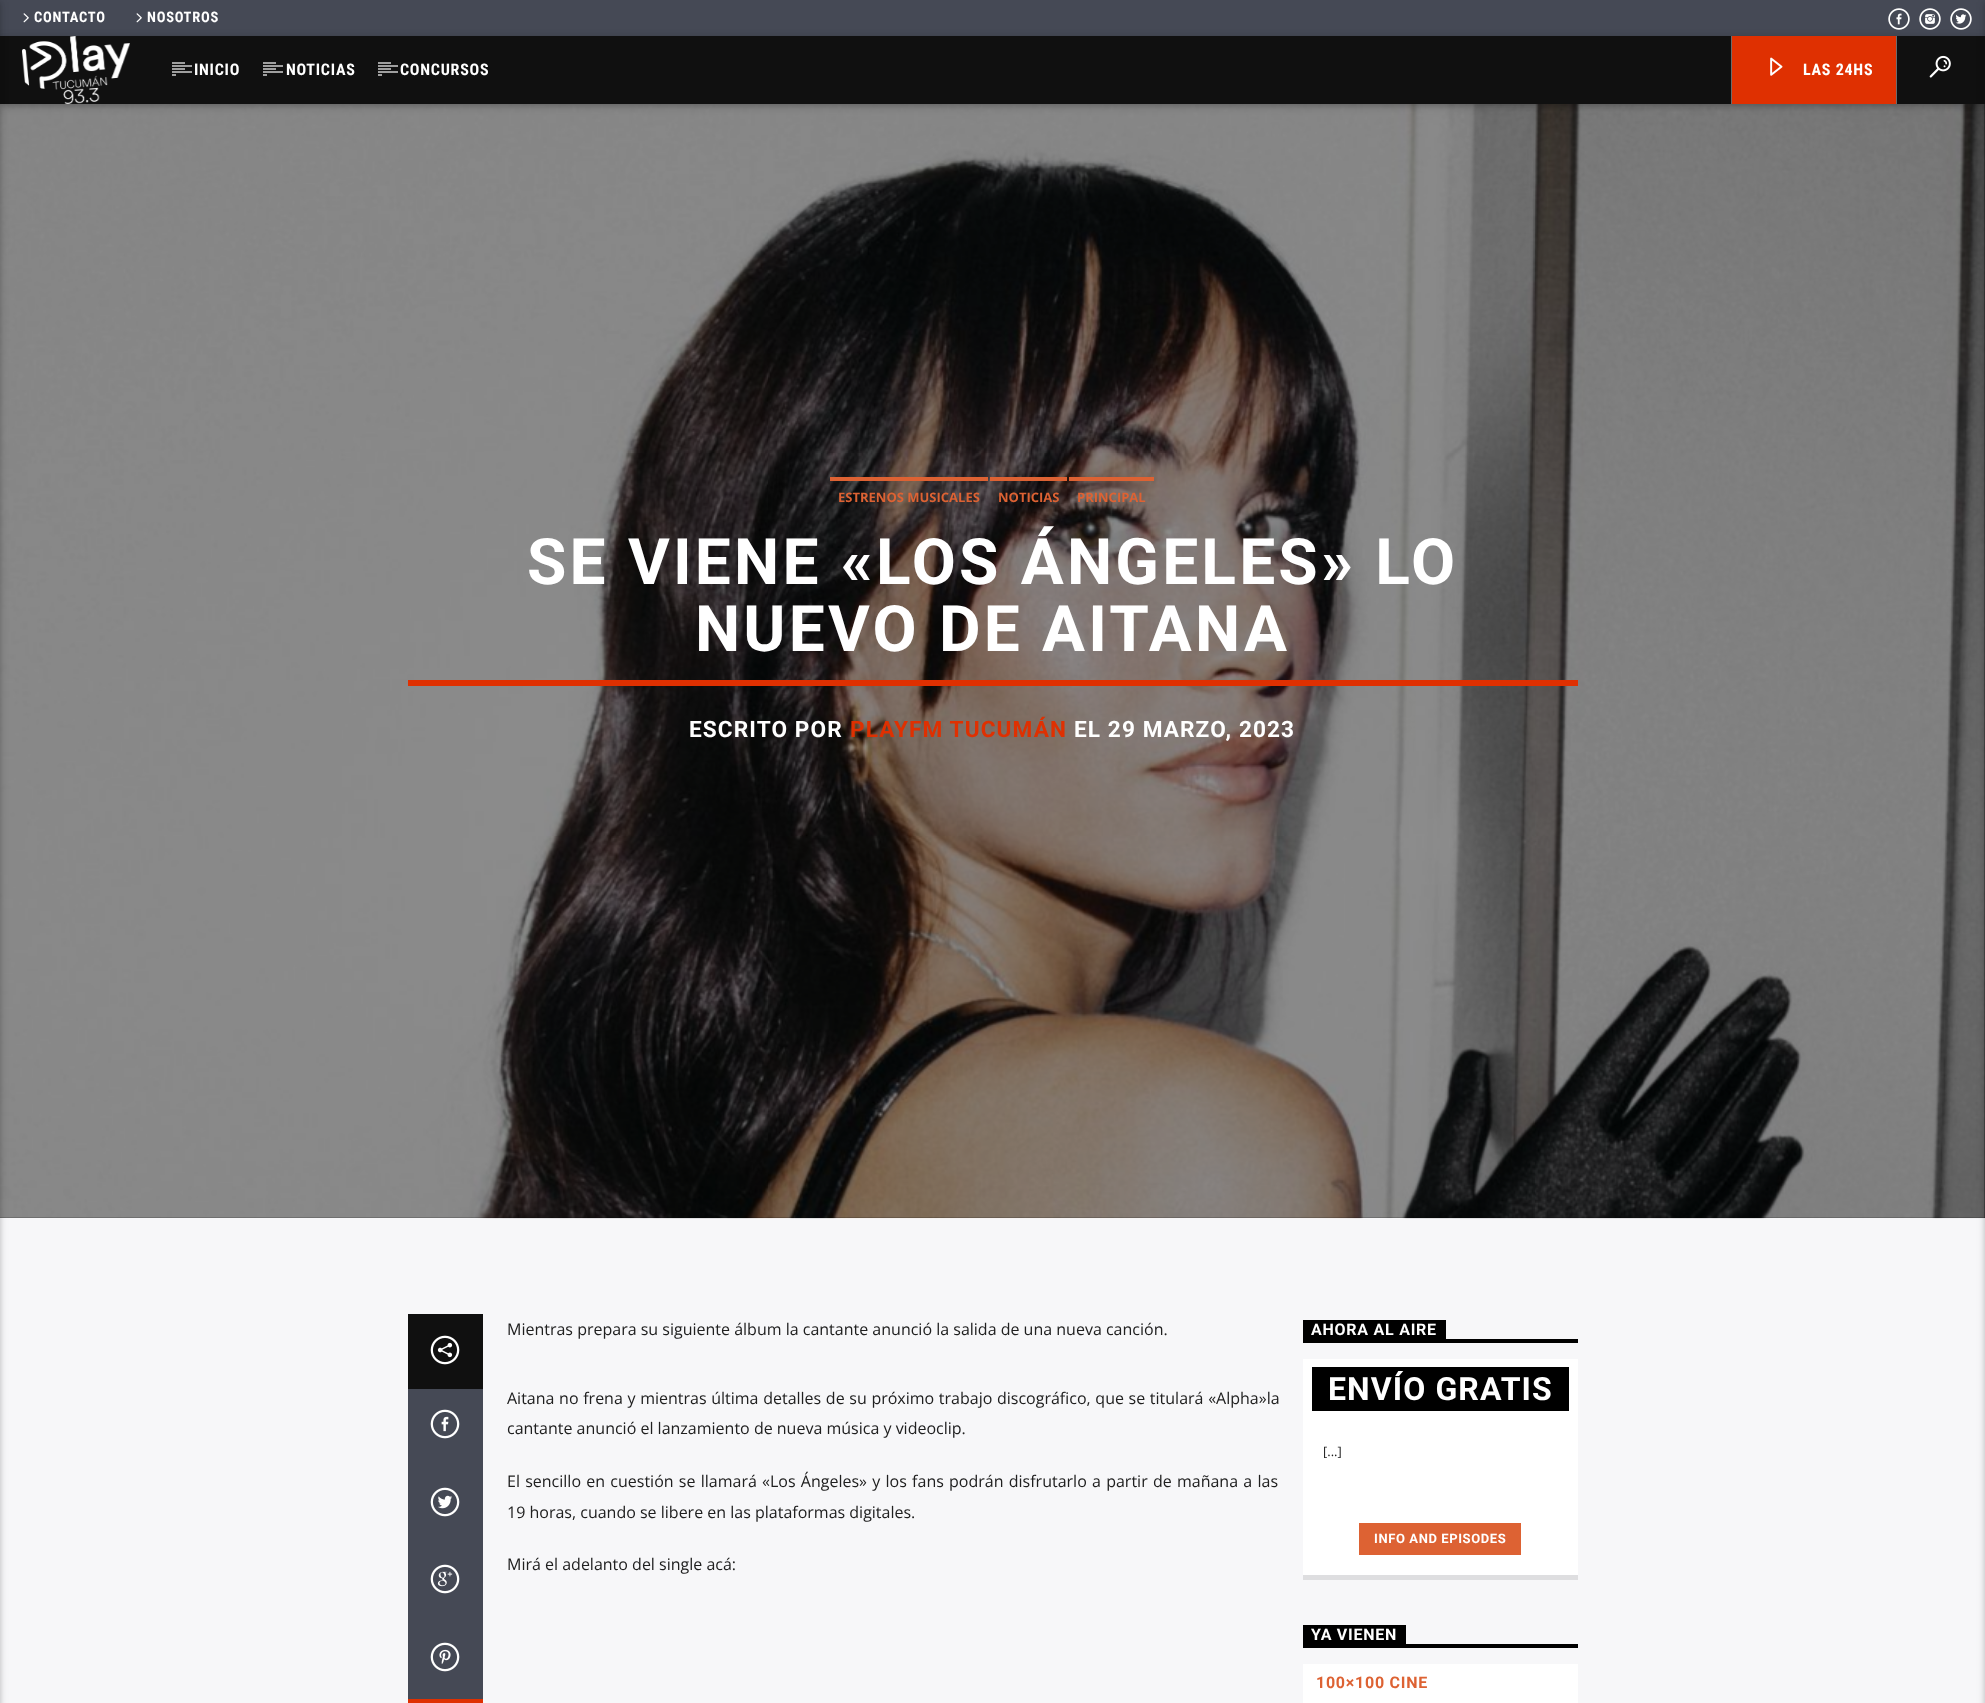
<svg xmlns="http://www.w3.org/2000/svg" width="1985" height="1703">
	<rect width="100%" height="100%" fill="#F7F7F9" />
	<rect x="0" y="0" width="1985" height="36" fill="#454955" />
	<image x="23" y="13" width="6" height="10" href="assets/img1.png" />
	<image x="136" y="13" width="6" height="10" href="assets/img1.png" />
	<image x="1888" y="8" width="22" height="22" href="assets/img2.png" />
	<image x="1919" y="8" width="22" height="22" href="assets/img3.png" />
	<image x="1950" y="8" width="22" height="22" href="assets/img4.png" />
	<rect x="0" y="104" width="1985" height="1114" fill="#000000" />
	<image x="0" y="104" width="1985" height="1115" href="assets/img8.png" />
	<rect x="0" y="38" width="1985" height="68" fill="#000000" fill-opacity="0.12" filter="blur(5px)" />
	<rect x="0" y="38" width="1985" height="68" fill="#000000" fill-opacity="0.16" filter="blur(2.5px)" />
	<rect x="0" y="36" width="1985" height="68" fill="#101010" />
	<rect x="-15" y="2" width="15" height="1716" fill="#000000" fill-opacity="0.12" filter="blur(5px)" />
	<rect x="-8" y="2" width="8" height="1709" fill="#000000" fill-opacity="0.16" filter="blur(2.5px)" />
	<g font-family="Roboto Condensed" font-size="14.5" font-weight="700" letter-spacing="0.75" fill="#FFFFFF">
		<text x="34" y="22">CONTACTO</text>
		<text x="147" y="22">NOSOTROS</text>
	</g>
	<image x="22" y="36" width="108" height="68" href="assets/img5.png" />
	<rect x="172" y="74" width="4" height="2" fill="#9F9F9F" />
	<rect x="172" y="62" width="13" height="2" fill="#9F9F9F" />
	<rect x="172" y="68" width="13" height="2" fill="#9F9F9F" />
	<text x="194" y="75" font-family="Roboto Condensed" font-size="16" font-weight="700" letter-spacing="0.75" fill="#FFFFFF">INICIO</text>
	<rect x="172" y="65" width="20" height="2" fill="#9F9F9F" />
	<rect x="172" y="71" width="20" height="2" fill="#9F9F9F" />
	<rect x="263" y="74" width="4" height="2" fill="#9F9F9F" />
	<rect x="263" y="62" width="13" height="2" fill="#9F9F9F" />
	<rect x="263" y="68" width="13" height="2" fill="#9F9F9F" />
	<text x="286" y="75" font-family="Roboto Condensed" font-size="16" font-weight="700" letter-spacing="0.75" fill="#FFFFFF">NOTICIAS</text>
	<rect x="263" y="65" width="20" height="2" fill="#9F9F9F" />
	<rect x="263" y="71" width="20" height="2" fill="#9F9F9F" />
	<rect x="378" y="74" width="4" height="2" fill="#9F9F9F" />
	<rect x="378" y="62" width="13" height="2" fill="#9F9F9F" />
	<rect x="378" y="68" width="13" height="2" fill="#9F9F9F" />
	<text x="400" y="75" font-family="Roboto Condensed" font-size="16" font-weight="700" letter-spacing="0.75" fill="#FFFFFF">CONCURSOS</text>
	<rect x="378" y="65" width="20" height="2" fill="#9F9F9F" />
	<rect x="378" y="71" width="20" height="2" fill="#9F9F9F" />
	<rect x="1731" y="36" width="1" height="68" fill="#6B6B6B" />
	<rect x="1732" y="36" width="164" height="68" fill="#DF3001" />
	<image x="1770" y="57" width="13" height="19" href="assets/img6.png" />
	<text x="1803" y="75" font-family="Roboto Condensed" font-size="16" font-weight="700" letter-spacing="0.75" fill="#FFFFFF">LAS 24HS</text>
	<rect x="1896" y="36" width="1" height="68" fill="#6B6B6B" />
	<image x="1929" y="55" width="22" height="23" href="assets/img7.png" />
	<rect x="1985" y="2" width="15" height="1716" fill="#000000" fill-opacity="0.12" filter="blur(5px)" />
	<rect x="1985" y="2" width="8" height="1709" fill="#000000" fill-opacity="0.16" filter="blur(2.5px)" />
	<rect x="830" y="477" width="158" height="4" fill="#DD6233" />
	<text x="838" y="502" font-family="Open Sans" font-size="13" font-weight="700" fill="#DD6233">ESTRENOS MUSICALES</text>
	<rect x="990" y="477" width="77" height="4" fill="#DD6233" />
	<text x="998" y="502" font-family="Open Sans" font-size="13" font-weight="700" fill="#DD6233">NOTICIAS</text>
	<rect x="1069" y="477" width="85" height="4" fill="#DD6233" />
	<text x="1077" y="502" font-family="Open Sans" font-size="13" font-weight="700" fill="#DD6233">PRINCIPAL</text>
	<rect x="408" y="680" width="1170" height="6" fill="#DF3001" />
	<g font-family="Roboto" font-size="64" font-weight="700" letter-spacing="3.2" fill="#FFFFFF">
		<text x="527" y="584">SE VIENE «LOS ÁNGELES» LO</text>
		<text x="695" y="651">NUEVO DE AITANA</text>
	</g>
	<text x="689" y="737" font-family="Roboto" font-size="22.6" font-weight="700" letter-spacing="1.1" fill="#FFFFFF">ESCRITO POR</text>
	<text x="850" y="737" font-family="Roboto" font-size="22.6" font-weight="700" letter-spacing="1.1" fill="#DF3001">PLAYFM TUCUMÁN</text>
	<text x="1074" y="737" font-family="Roboto" font-size="22.6" font-weight="700" letter-spacing="1.1" fill="#FFFFFF">EL 29 MARZO, 2023</text>
	<rect x="408" y="1389" width="75" height="310" fill="#454955" />
	<rect x="408" y="1314" width="75" height="75" fill="#101010" />
	<image x="430" y="1335" width="30" height="30" href="assets/img9.png" />
	<image x="430" y="1409" width="30" height="30" href="assets/img10.png" />
	<image x="430" y="1487" width="30" height="30" href="assets/img11.png" />
	<image x="430" y="1564" width="30" height="30" href="assets/img12.png" />
	<image x="430" y="1642" width="30" height="30" href="assets/img13.png" />
	<rect x="408" y="1699" width="75" height="4" fill="#DF3001" />
	<g font-family="Open Sans" font-size="16" fill="#202020">
		<text x="507" y="1335">Mientras prepara su siguiente álbum la cantante anunció la salida de una nueva canción.</text>
		<text x="507" y="1404" word-spacing="0.5">Aitana no frena y mientras última detalles de su próximo trabajo discográfico, que se titulará «Alpha»la</text>
		<text x="507" y="1434">cantante anunció el lanzamiento de nueva música y videoclip.</text>
		<text x="507" y="1487" word-spacing="1.1">El sencillo en cuestión se llamará «Los Ángeles» y los fans podrán disfrutarlo a partir de mañana a las</text>
		<text x="507" y="1518">19 horas, cuando se libere en las plataformas digitales.</text>
		<text x="507" y="1570">Mirá el adelanto del single acá:</text>
	</g>
	<rect x="1303" y="1339" width="275" height="4" fill="#000000" />
	<rect x="1303" y="1320" width="143" height="19" fill="#000000" />
	<text x="1311" y="1335" font-family="Roboto" font-size="16" font-weight="700" letter-spacing="0.75" fill="#FFFFFF">AHORA AL AIRE</text>
	<rect x="1303" y="1575" width="275" height="5" fill="#DEDEE0" />
	<rect x="1303" y="1359" width="275" height="216" fill="#FFFFFF" />
	<rect x="1312" y="1367" width="257" height="44" fill="#000000" />
	<text x="1328" y="1400" font-family="Roboto" font-size="32" font-weight="700" letter-spacing="1.1" fill="#FFFFFF">ENVÍO GRATIS</text>
	<text x="1323" y="1456" font-family="Open Sans" font-size="13" fill="#202020">[...]</text>
	<rect x="1359" y="1523" width="162" height="32" fill="#DD6233" />
	<text x="1374" y="1543" font-family="Roboto" font-size="13" font-weight="700" letter-spacing="0.6" fill="#FFFFFF">INFO AND EPISODES</text>
	<rect x="1303" y="1644" width="275" height="4" fill="#000000" />
	<rect x="1303" y="1625" width="103" height="19" fill="#000000" />
	<text x="1311" y="1640" font-family="Roboto" font-size="16" font-weight="700" letter-spacing="0.75" fill="#FFFFFF">YA VIENEN</text>
	<rect x="1303" y="1664" width="275" height="39" fill="#FFFFFF" />
	<text x="1316" y="1688" font-family="Roboto" font-size="16" font-weight="700" letter-spacing="0.75" fill="#DD6233">100×100 CINE</text>
</svg>
